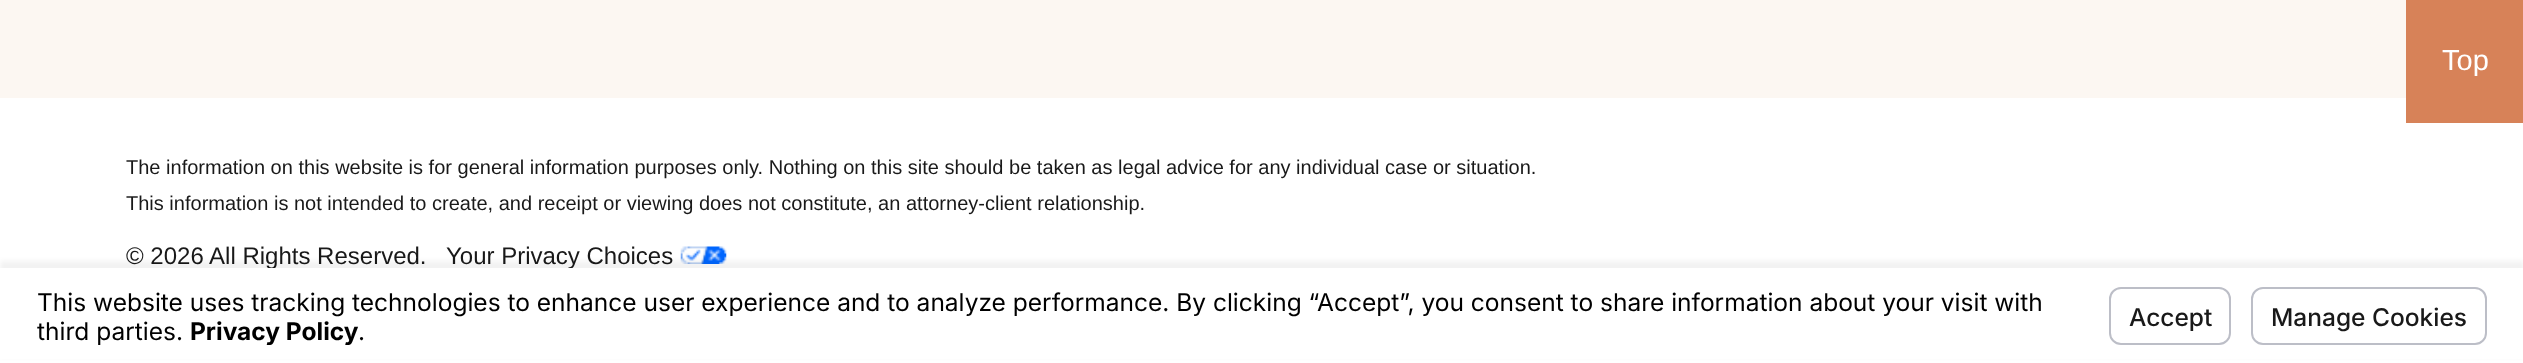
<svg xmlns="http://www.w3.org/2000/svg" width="2523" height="363">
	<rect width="100%" height="100%" fill="#FFFFFF" />
	<rect x="2406" y="0" width="117" height="123" fill="#D78258" />
	<text x="2442" y="70" font-family="Arimo" font-size="29" fill="#FFFFFF">Top</text>
	<rect x="0" y="0" width="2406" height="98" fill="#FCF7F2" />
	<g font-family="Arimo" font-size="20.03" fill="#191919">
		<text x="126" y="174">The information on this website is for general information purposes only. Nothing on this site should be taken as legal advice for any individual case or situation.</text>
		<text x="126" y="210">This information is not intended to create, and receipt or viewing does not constitute, an attorney-client relationship.</text>
	</g>
	<g font-family="Arimo" font-size="24" fill="#191919">
		<text x="126" y="264">© 2026 All Rights Reserved.</text>
		<text x="446" y="264">Your Privacy Choices</text>
	</g>
	<image x="680" y="246" width="47" height="18" href="assets/img1.png" />
	<rect x="0" y="261" width="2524" height="96" fill="#000000" fill-opacity="0.05" filter="blur(2.5px)" />
	<rect x="0" y="268" width="2523" height="91" fill="#FFFFFF" />
	<g font-family="Inter" font-size="24.5" fill="#000000">
		<text x="37" y="311">This website uses tracking technologies to enhance user experience and to analyze performance. By clicking “Accept”, you consent to share information about your visit with</text>
		<text x="37" y="340">third parties.</text>
	</g>
	<text x="190" y="340" font-family="Inter" font-size="24.5" font-weight="700" fill="#000000">Privacy Policy</text>
	<text x="358" y="340" font-family="Inter" font-size="24.5" fill="#000000">.</text>
	<rect x="2110" y="288" width="120" height="56" rx="11" fill="none" stroke="#BCBEC7" stroke-width="2" />
	<text x="2129" y="326" font-family="Inter" font-size="24.5" font-weight="500" fill="#191919">Accept</text>
	<rect x="2252" y="288" width="234" height="56" rx="11" fill="none" stroke="#BCBEC7" stroke-width="2" />
	<text x="2271" y="326" font-family="Inter" font-size="24.5" font-weight="500" fill="#191919">Manage Cookies</text>
</svg>
